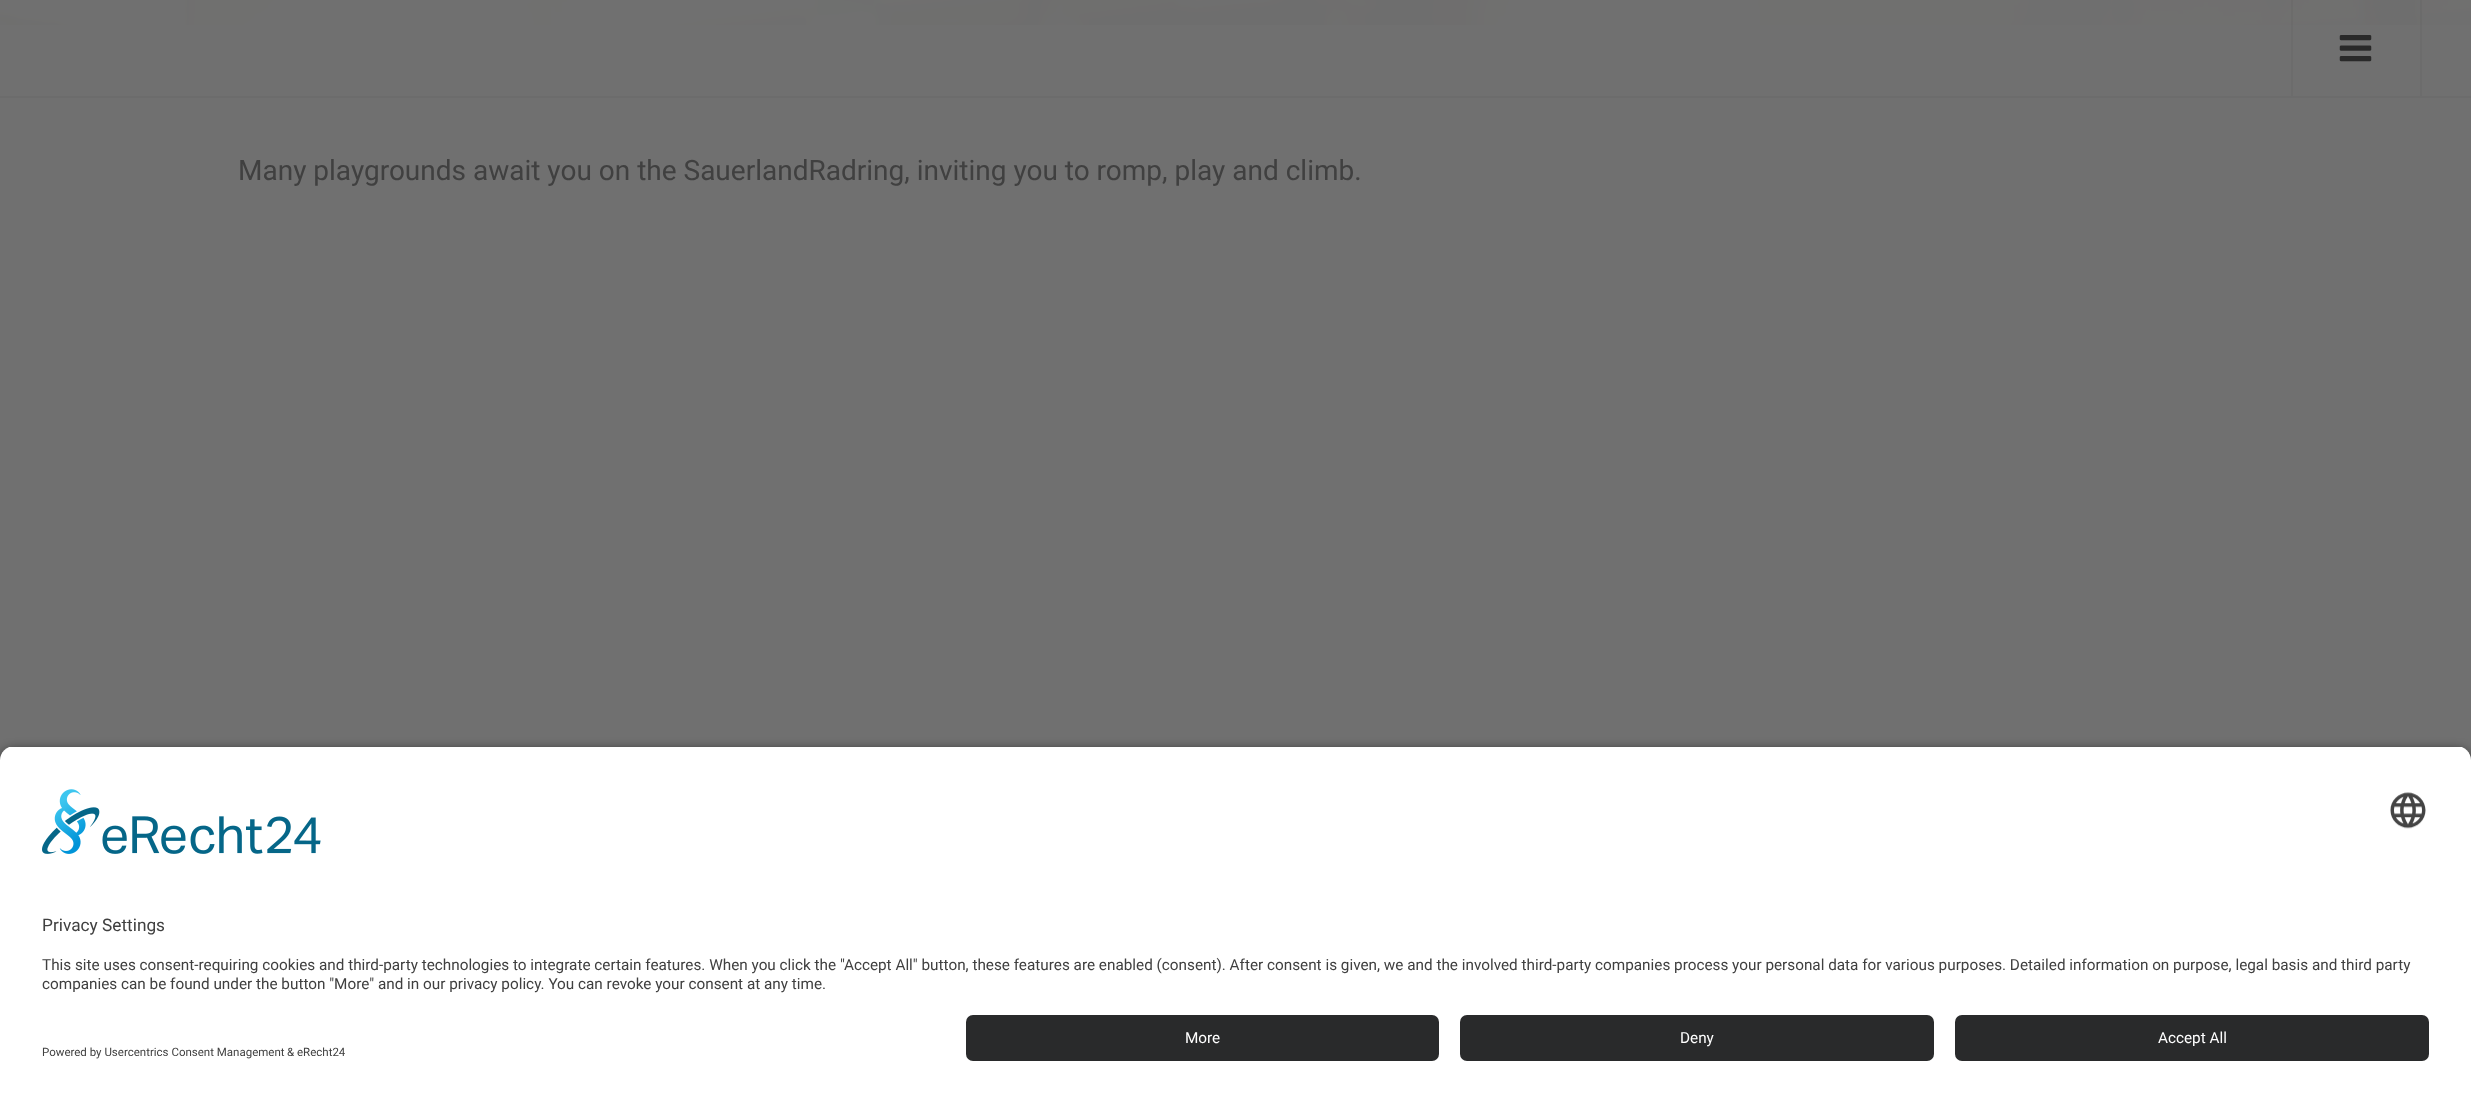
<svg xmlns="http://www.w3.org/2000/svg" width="2471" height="1102">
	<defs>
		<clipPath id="clip1"><path d="M14 746H2457C2464.5 746 2471 752.5 2471 760V1001H0V760C0 752.5 6.5 746 14 746Z" /></clipPath>
	</defs>
	<rect width="100%" height="100%" fill="#707070" />
	<image x="0" y="0" width="2471" height="25" href="assets/img1.png" />
	<rect x="0" y="96" width="2471" height="2" fill="#6C6C6C" />
	<rect x="2420" y="0" width="2" height="96" fill="#242424" fill-opacity="0.05" />
	<rect x="2291" y="0" width="2" height="96" fill="#242424" fill-opacity="0.05" />
	<image x="2339" y="35" width="33" height="27" href="assets/img2.png" />
	<text x="238" y="180" font-family="Roboto" font-size="28" fill="#404040">Many playgrounds await you on the SauerlandRadring, inviting you to romp, play and climb.</text>
	<rect x="0" y="751" width="2471" height="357" rx="14" fill="#000000" fill-opacity="0.8" filter="blur(6px)" />
	<g clip-path="url(#clip1)">
		<rect x="0" y="747" width="2471" height="254" fill="#FFFFFF" />
	</g>
	<image x="42" y="789" width="279" height="65" href="assets/img3.png" />
	<image x="2390" y="792" width="36" height="37" href="assets/img4.png" />
	<text x="42" y="931" font-family="Roboto" font-size="17.25" fill="#404040">Privacy Settings</text>
	<g font-family="Roboto" font-size="15.31" fill="#404040">
		<text x="42" y="970">This site uses consent-requiring cookies and third-party technologies to integrate certain features. When you click the "Accept All" button, these features are enabled (consent). After consent is given, we and the involved third-party companies process your personal data for various purposes. Detailed information on purpose, legal basis and third party</text>
		<text x="42" y="989">companies can be found under the button "More" and in our privacy policy. You can revoke your consent at any time.</text>
	</g>
	<rect x="0" y="1001" width="2471" height="101" fill="#FFFFFF" />
	<rect x="966" y="1015" width="473" height="46" rx="7" fill="#292A2B" />
	<text x="1185" y="1043" font-family="Roboto" font-size="15.31" fill="#FFFFFF">More</text>
	<rect x="1460" y="1015" width="474" height="46" rx="7" fill="#292A2B" />
	<text x="1680" y="1043" font-family="Roboto" font-size="15.31" fill="#FFFFFF">Deny</text>
	<rect x="1955" y="1015" width="474" height="46" rx="7" fill="#292A2B" />
	<text x="2158" y="1043" font-family="Roboto" font-size="15.31" fill="#FFFFFF">Accept All</text>
	<g font-family="Roboto" font-size="11.5" fill="#404040">
		<text x="42" y="1056">Powered by Usercentrics Consent Management</text>
		<text x="287" y="1056">&amp; eRecht24</text>
	</g>
</svg>
